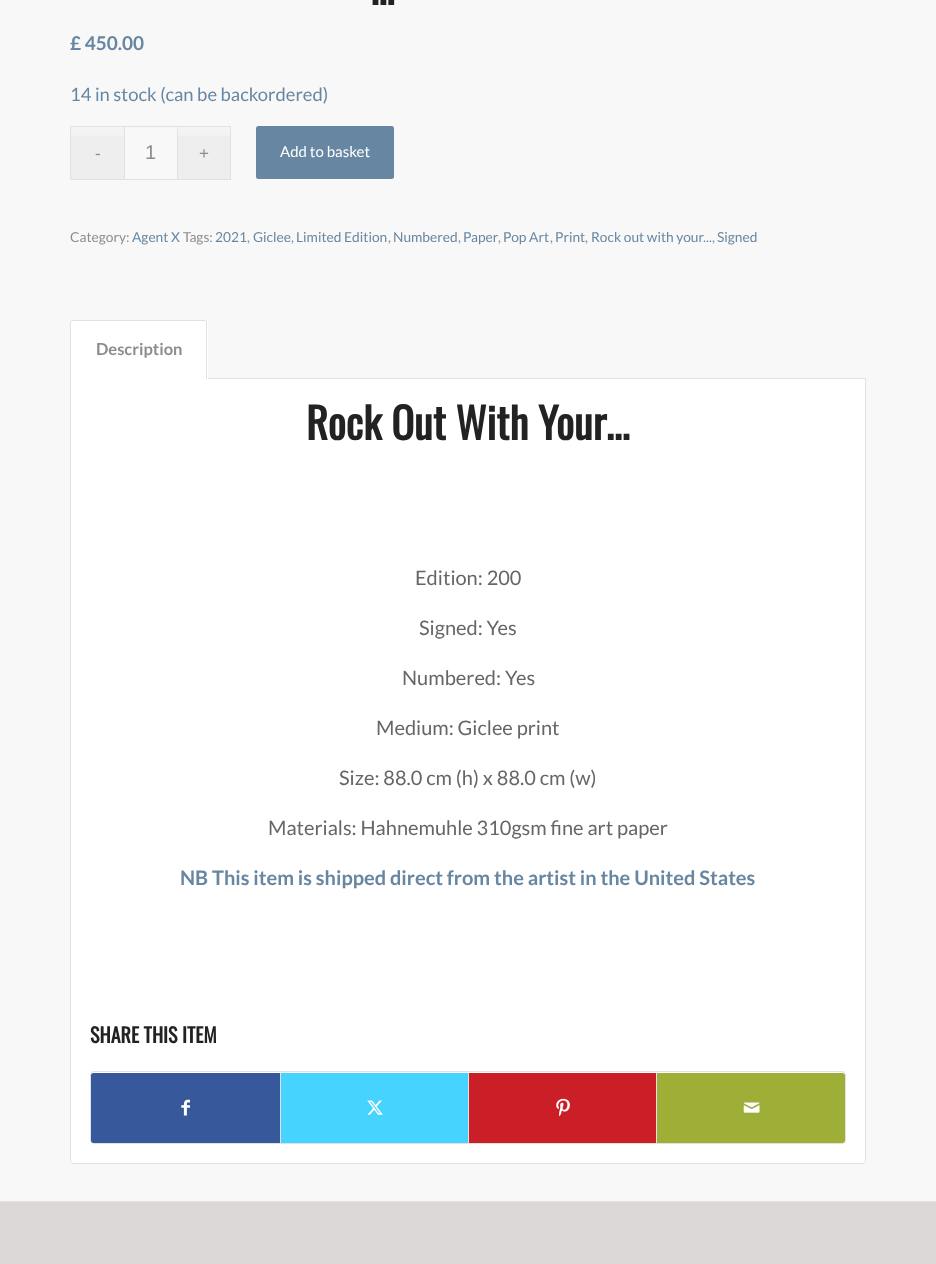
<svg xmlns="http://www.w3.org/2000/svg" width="936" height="1264">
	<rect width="100%" height="100%" fill="#DCD8D8" />
	<rect x="0" y="0" width="936" height="1201" fill="#F8F8F8" />
	<text x="371" y="5" font-family="Oswald" font-size="42.5" font-weight="700" fill="#222222">…</text>
	<text x="70" y="50" font-family="Lato" font-size="19" font-weight="700" fill="#6786A1">£ 450.00</text>
	<text x="70" y="101" font-family="Lato" font-size="18.4" fill="#6786A1">14 in stock (can be backordered)</text>
	<rect x="71" y="127" width="53" height="52" fill="#EEEEEE" />
	<image x="71" y="127" width="53" height="9" href="assets/img1.png" />
	<rect x="124.5" y="126.5" width="53" height="53" fill="none" stroke="#E1E1E1" />
	<rect x="178" y="127" width="52" height="52" fill="#EEEEEE" />
	<image x="177" y="127" width="53" height="9" href="assets/img2.png" />
	<text x="95" y="159" font-family="Liberation Sans" font-size="17" fill="#8D8D8D">-</text>
	<rect x="70" y="126" width="54" height="1" fill="#E1E1E1" />
	<rect x="70" y="179" width="54" height="1" fill="#E1E1E1" />
	<rect x="70" y="126" width="1" height="54" fill="#E1E1E1" />
	<text x="145" y="159" font-family="Liberation Sans" font-size="20" fill="#8D8D8D">1</text>
	<text x="199" y="159" font-family="Liberation Sans" font-size="17" fill="#8D8D8D">+</text>
	<rect x="178" y="126" width="53" height="1" fill="#E1E1E1" />
	<rect x="230" y="126" width="1" height="54" fill="#E1E1E1" />
	<rect x="178" y="179" width="53" height="1" fill="#E1E1E1" />
	<rect x="256" y="126" width="138" height="53" rx="2.5" fill="#6786A1" />
	<text x="280" y="157" font-family="Lato" font-size="15" fill="#FFFFFF">Add to basket</text>
	<text x="70" y="242" font-family="Lato" font-size="13.75" fill="#8D8D8D">Category:</text>
	<text x="132" y="242" font-family="Lato" font-size="13.75" fill="#6786A1">Agent X</text>
	<text x="183" y="242" font-family="Lato" font-size="13.75" fill="#8D8D8D">Tags:</text>
	<text x="215" y="242" font-family="Lato" font-size="13.75" fill="#6786A1">2021</text>
	<text x="247" y="242" font-family="Lato" font-size="13.75" fill="#8D8D8D">,</text>
	<text x="253" y="242" font-family="Lato" font-size="13.75" fill="#6786A1">Giclee</text>
	<text x="291" y="242" font-family="Lato" font-size="13.75" fill="#8D8D8D">,</text>
	<text x="296" y="242" font-family="Lato" font-size="13.75" fill="#6786A1">Limited Edition</text>
	<text x="388" y="242" font-family="Lato" font-size="13.75" fill="#8D8D8D">,</text>
	<text x="393" y="242" font-family="Lato" font-size="13.75" fill="#6786A1">Numbered</text>
	<text x="458" y="242" font-family="Lato" font-size="13.75" fill="#8D8D8D">,</text>
	<text x="463" y="242" font-family="Lato" font-size="13.75" fill="#6786A1">Paper</text>
	<text x="498" y="242" font-family="Lato" font-size="13.75" fill="#8D8D8D">,</text>
	<text x="503" y="242" font-family="Lato" font-size="13.75" fill="#6786A1">Pop Art</text>
	<text x="550" y="242" font-family="Lato" font-size="13.75" fill="#8D8D8D">,</text>
	<text x="555" y="242" font-family="Lato" font-size="13.75" fill="#6786A1">Print</text>
	<text x="585" y="242" font-family="Lato" font-size="13.75" fill="#8D8D8D">,</text>
	<text x="591" y="242" font-family="Lato" font-size="13.75" fill="#6786A1">Rock out with your...</text>
	<text x="712" y="242" font-family="Lato" font-size="13.75" fill="#8D8D8D">,</text>
	<text x="717" y="242" font-family="Lato" font-size="13.75" fill="#6786A1">Signed</text>
	<path d="M70.5 378.5H865.5V1160C865.5 1162 864 1163.5 862 1163.5H74C72 1163.5 70.5 1162 70.5 1160Z" fill="#FFFFFF" stroke="#E1E1E1" />
	<rect x="70" y="320" width="138" height="59" fill="#FFFFFF" />
	<rect x="71" y="320" width="135" height="1" fill="#E1E1E1" />
	<rect x="206" y="321" width="1" height="58" fill="#E1E1E1" />
	<rect x="70" y="321" width="1" height="58" fill="#E1E1E1" />
	<text x="96" y="355" font-family="Lato" font-size="16.5" font-weight="700" fill="#8D8D8D">Description</text>
	<text x="306" y="440" font-family="Oswald" font-size="42.5" font-weight="700" fill="#222222">Rock Out With Your…</text>
	<g font-family="Lato" font-size="20" fill="#666666">
		<text x="415" y="585">Edition: 200</text>
		<text x="419" y="635">Signed: Yes</text>
		<text x="402" y="685">Numbered: Yes</text>
		<text x="376" y="735">Medium: Giclee print</text>
		<text x="339" y="785">Size: 88.0 cm (h) x 88.0 cm (w)</text>
		<text x="268" y="835">Materials: Hahnemuhle 310gsm fine art paper</text>
	</g>
	<text x="180" y="885" font-family="Lato" font-size="20" font-weight="700" fill="#6786A1">NB This item is shipped direct from the artist in the United States</text>
	<text x="90" y="1043" font-family="Oswald" font-size="20" font-weight="700" fill="#222222">SHARE THIS ITEM</text>
	<rect x="90.5" y="1071.5" width="755" height="72" rx="3.5" fill="none" stroke="#E1E1E1" />
	<path d="M93.5 1073H280V1143H93.5C92 1143 91 1142 91 1140.5V1075.5C91 1074 92 1073 93.5 1073Z" fill="#37589B" />
	<image x="181" y="1099" width="9" height="17" href="assets/img3.png" />
	<rect x="281" y="1073" width="187" height="70" fill="#46D4FE" />
	<rect x="280" y="1073" width="1" height="70" fill="#E1E1E1" />
	<image x="367" y="1100" width="16" height="15" href="assets/img4.png" />
	<rect x="469" y="1073" width="187" height="70" fill="#CA1F26" />
	<rect x="468" y="1073" width="1" height="70" fill="#E1E1E1" />
	<image x="556" y="1098" width="14" height="19" href="assets/img5.png" />
	<path d="M656 1073H842.5C844 1073 845 1074 845 1075.5V1140.5C845 1142 844 1143 842.5 1143H656Z" fill="#9FAE37" />
	<rect x="656" y="1073" width="1" height="70" fill="#E1E1E1" />
	<image x="743" y="1102" width="17" height="11" href="assets/img6.png" />
	<rect x="0" y="1201" width="936" height="1" fill="#E1E1E1" />
</svg>
